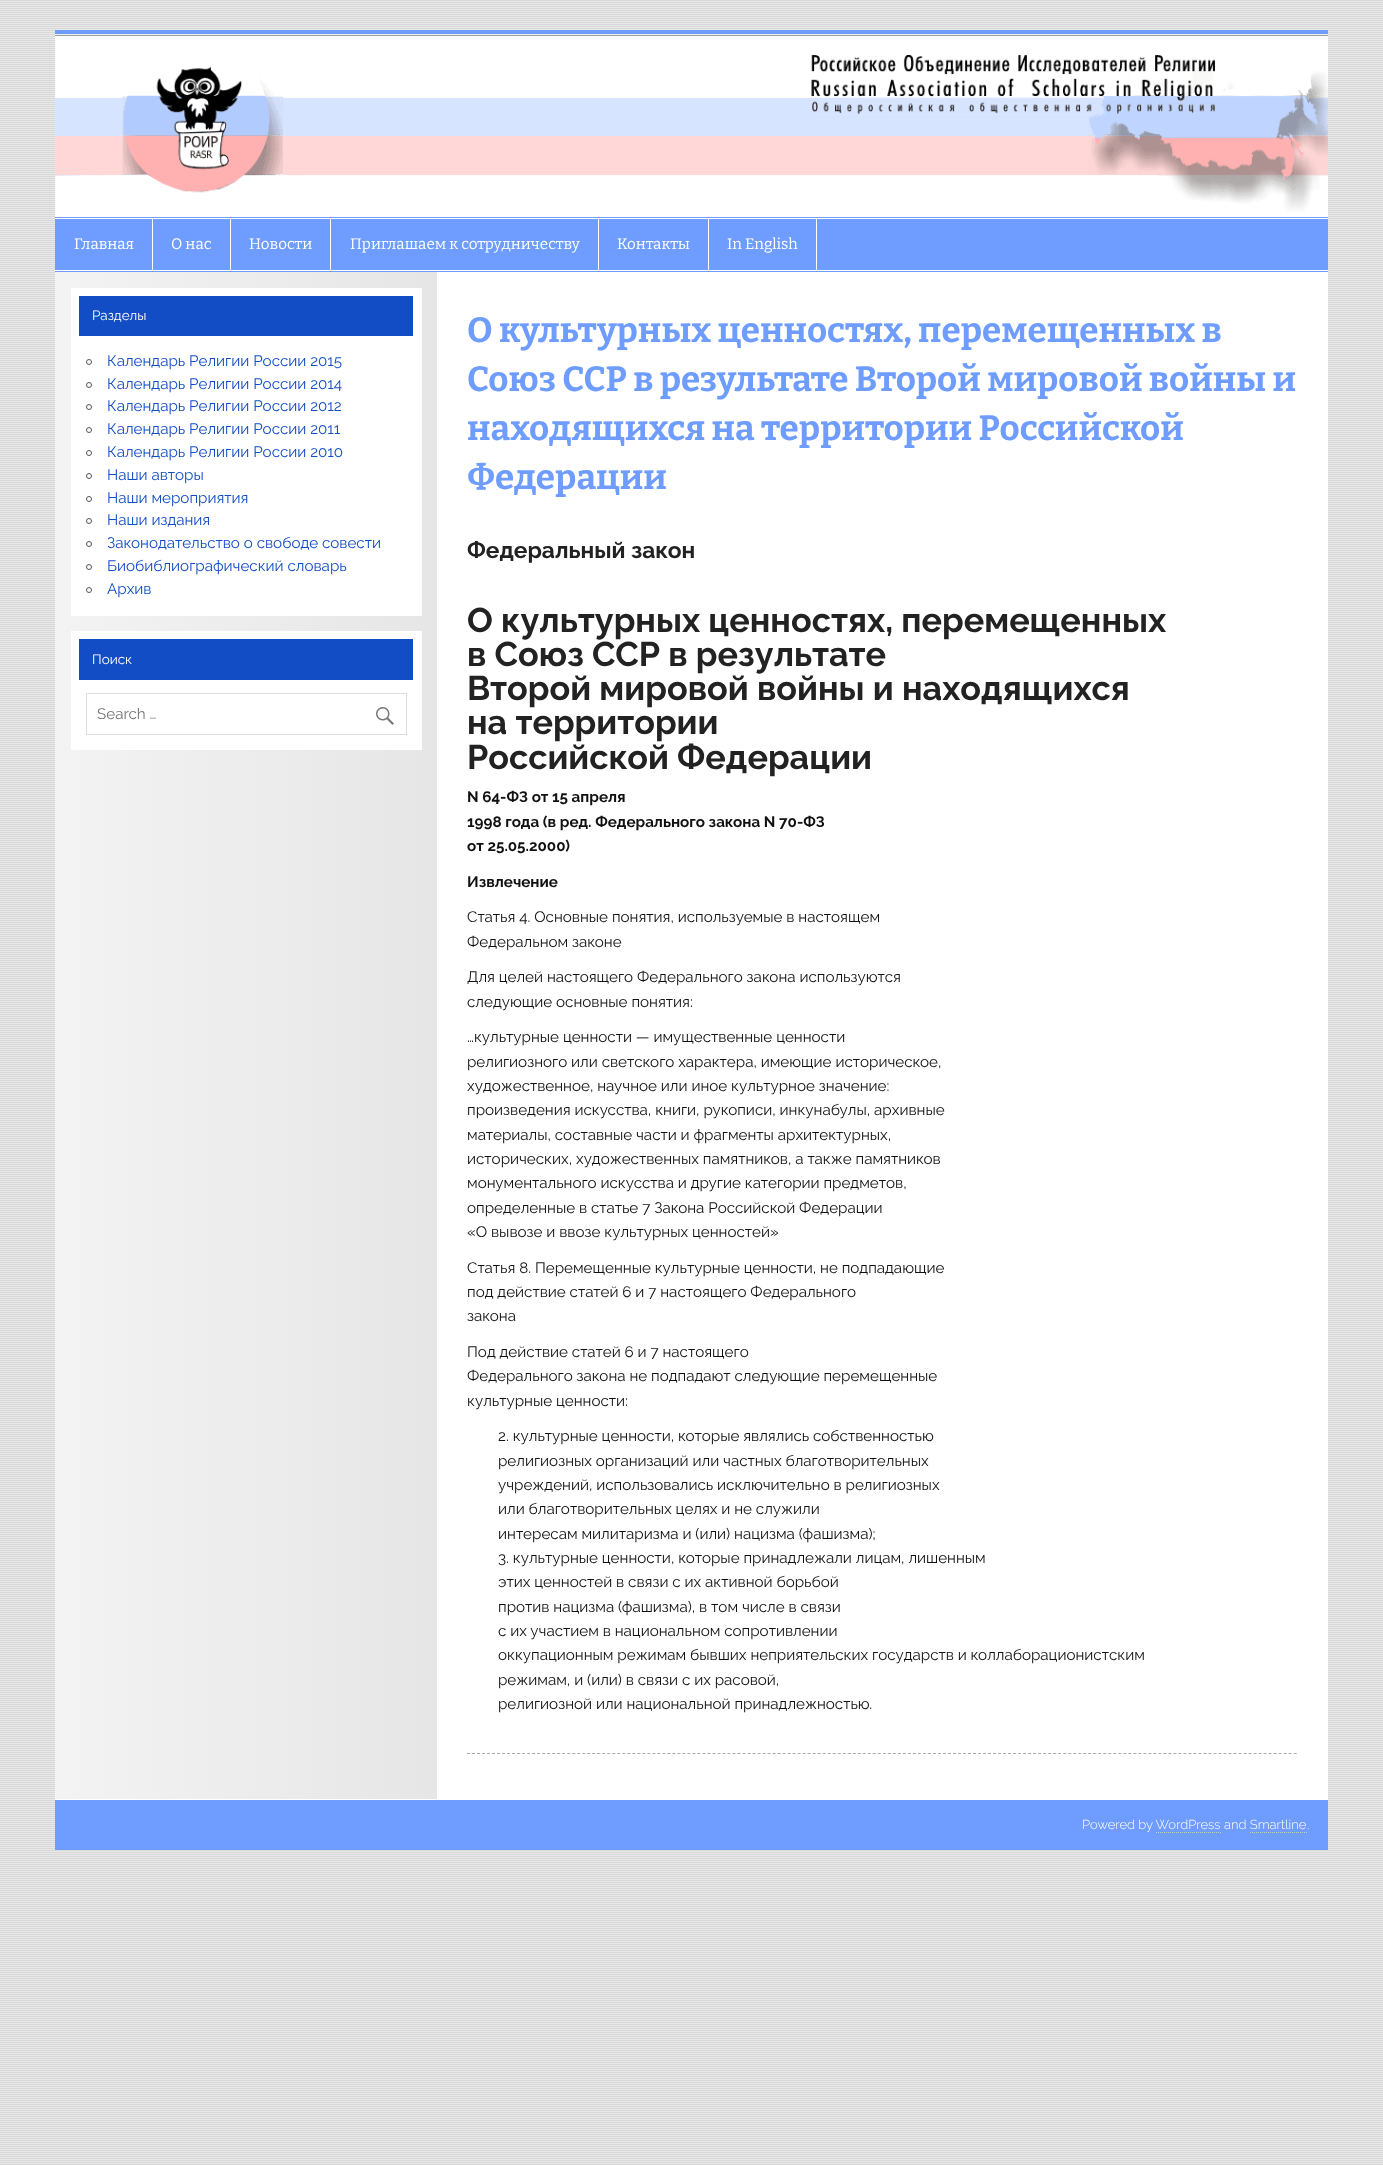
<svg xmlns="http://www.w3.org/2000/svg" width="1383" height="2165">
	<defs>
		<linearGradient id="g1" gradientUnits="userSpaceOnUse" x1="55" y1="1036" x2="437" y2="1036"><stop offset="0" stop-color="#F3F3F3" /><stop offset="1" stop-color="#E6E6E6" /></linearGradient>
	</defs>
	<rect width="100%" height="100%" fill="#FFFFFF" />
	<image x="0" y="0" width="1383" height="2165" href="assets/img1.png" />
	<rect x="55" y="174" width="1273" height="1626" fill="#FFFFFF" />
	<rect x="55" y="30" width="1273" height="4" fill="#6E9DFF" />
	<image x="55" y="34" width="1273" height="178" href="assets/img2.png" />
	<rect x="55" y="217" width="1273" height="1" fill="#6E9DFF" />
	<rect x="55" y="271" width="1273" height="1" fill="#6E9DFF" />
	<rect x="55" y="219" width="1273" height="51" fill="#6E9DFF" />
	<rect x="152" y="219" width="1" height="51" fill="#FFFFFF" />
	<text x="74" y="249" font-family="Bitter" font-size="15.2" fill="#FFFFFF">Главная</text>
	<rect x="230" y="219" width="1" height="51" fill="#FFFFFF" />
	<text x="171" y="249" font-family="Bitter" font-size="15.2" fill="#FFFFFF">О нас</text>
	<rect x="330" y="219" width="1" height="51" fill="#FFFFFF" />
	<text x="249" y="249" font-family="Bitter" font-size="15.2" fill="#FFFFFF">Новости</text>
	<rect x="598" y="219" width="1" height="51" fill="#FFFFFF" />
	<text x="350" y="249" font-family="Bitter" font-size="15.2" fill="#FFFFFF">Приглашаем к сотрудничеству</text>
	<rect x="708" y="219" width="1" height="51" fill="#FFFFFF" />
	<text x="617" y="249" font-family="Bitter" font-size="15.2" fill="#FFFFFF">Контакты</text>
	<rect x="816" y="219" width="1" height="51" fill="#FFFFFF" />
	<text x="727" y="249" font-family="Bitter" font-size="15.2" fill="#FFFFFF">In English</text>
	<rect x="55" y="272" width="382" height="1527" fill="url(#g1)" />
	<rect x="71" y="288" width="351" height="328" fill="#FFFFFF" />
	<rect x="79" y="296" width="334" height="40" fill="#134DC5" />
	<text x="92" y="320" font-family="Raleway" font-size="13.5" fill="#FFFFFF">Разделы</text>
	<circle cx="89" cy="362" r="2.5" fill="none" stroke="#555555" />
	<text x="107" y="366" font-family="Raleway" font-size="15.2" fill="#134DC5">Календарь Религии России 2015</text>
	<circle cx="89" cy="385" r="2.5" fill="none" stroke="#555555" />
	<text x="107" y="389" font-family="Raleway" font-size="15.2" fill="#134DC5">Календарь Религии России 2014</text>
	<circle cx="89" cy="407" r="2.5" fill="none" stroke="#555555" />
	<text x="107" y="411" font-family="Raleway" font-size="15.2" fill="#134DC5">Календарь Религии России 2012</text>
	<circle cx="89" cy="430" r="2.5" fill="none" stroke="#555555" />
	<text x="107" y="434" font-family="Raleway" font-size="15.2" fill="#134DC5">Календарь Религии России 2011</text>
	<circle cx="89" cy="453" r="2.5" fill="none" stroke="#555555" />
	<text x="107" y="457" font-family="Raleway" font-size="15.2" fill="#134DC5">Календарь Религии России 2010</text>
	<circle cx="89" cy="476" r="2.5" fill="none" stroke="#555555" />
	<text x="107" y="480" font-family="Raleway" font-size="15.2" fill="#134DC5">Наши авторы</text>
	<circle cx="89" cy="499" r="2.5" fill="none" stroke="#555555" />
	<text x="107" y="503" font-family="Raleway" font-size="15.2" fill="#134DC5">Наши мероприятия</text>
	<circle cx="89" cy="521" r="2.5" fill="none" stroke="#555555" />
	<text x="107" y="525" font-family="Raleway" font-size="15.2" fill="#134DC5">Наши издания</text>
	<circle cx="89" cy="544" r="2.5" fill="none" stroke="#555555" />
	<text x="107" y="548" font-family="Raleway" font-size="15.2" fill="#134DC5">Законодательство о свободе совести</text>
	<circle cx="89" cy="567" r="2.5" fill="none" stroke="#555555" />
	<text x="107" y="571" font-family="Raleway" font-size="15.2" fill="#134DC5">Биобиблиографический словарь</text>
	<circle cx="89" cy="590" r="2.5" fill="none" stroke="#555555" />
	<text x="107" y="594" font-family="Raleway" font-size="15.2" fill="#134DC5">Архив</text>
	<rect x="71" y="631" width="351" height="119" fill="#FFFFFF" />
	<rect x="79" y="639" width="334" height="41" fill="#134DC5" />
	<text x="92" y="664" font-family="Raleway" font-size="13.5" fill="#FFFFFF">Поиск</text>
	<rect x="86.5" y="693.5" width="320" height="41" fill="none" stroke="#DDDDDD" />
	<text x="97" y="719" font-family="Raleway" font-size="15.2" fill="#757575">Search …</text>
	<image x="376" y="707" width="18" height="18" href="assets/img3.png" />
	<path d="M467 1753.5H1297" fill="none" stroke="#AAAAAA" stroke-dasharray="3 2.01" />
	<g font-family="Bitter" font-size="35" font-weight="700" fill="#6E9DFF">
		<text x="467" y="342">О культурных ценностях, перемещенных в</text>
		<text x="467" y="391">Союз ССР в результате Второй мировой войны и</text>
		<text x="467" y="440">находящихся на территории Российской</text>
		<text x="467" y="489">Федерации</text>
	</g>
	<text x="467" y="558" font-family="Raleway" font-size="22.75" font-weight="700" fill="#222222">Федеральный закон</text>
	<g font-family="Raleway" font-size="34.2" font-weight="700" fill="#222222">
		<text x="467" y="632">О культурных ценностях, перемещенных</text>
		<text x="467" y="666">в Союз ССР в результате</text>
		<text x="467" y="700">Второй мировой войны и находящихся</text>
		<text x="467" y="734">на территории</text>
		<text x="467" y="769">Российской Федерации</text>
	</g>
	<g font-family="Raleway" font-size="15.2" font-weight="700" fill="#111111">
		<text x="467" y="802">N 64-ФЗ от 15 апреля</text>
		<text x="467" y="827">1998 года (в ред. Федерального закона N 70-ФЗ</text>
		<text x="467" y="851">от 25.05.2000)</text>
		<text x="467" y="887">Извлечение</text>
	</g>
	<g font-family="Raleway" font-size="15.2" fill="#111111">
		<text x="467" y="922">Статья 4. Основные понятия, используемые в настоящем</text>
		<text x="467" y="947">Федеральном законе</text>
		<text x="467" y="982">Для целей настоящего Федерального закона используются</text>
		<text x="467" y="1007">следующие основные понятия:</text>
		<text x="467" y="1042">…культурные ценности — имущественные ценности</text>
		<text x="467" y="1067">религиозного или светского характера, имеющие историческое,</text>
		<text x="467" y="1091">художественное, научное или иное культурное значение:</text>
		<text x="467" y="1115">произведения искусства, книги, рукописи, инкунабулы, архивные</text>
		<text x="467" y="1140">материалы, составные части и фрагменты архитектурных,</text>
		<text x="467" y="1164">исторических, художественных памятников, а также памятников</text>
		<text x="467" y="1188">монументального искусства и другие категории предметов,</text>
		<text x="467" y="1213">определенные в статье 7 Закона Российской Федерации</text>
		<text x="467" y="1237">«О вывозе и ввозе культурных ценностей»</text>
		<text x="467" y="1273">Статья 8. Перемещенные культурные ценности, не подпадающие</text>
		<text x="467" y="1297">под действие статей 6 и 7 настоящего Федерального</text>
		<text x="467" y="1321">закона</text>
		<text x="467" y="1357">Под действие статей 6 и 7 настоящего</text>
		<text x="467" y="1381">Федерального закона не подпадают следующие перемещенные</text>
		<text x="467" y="1406">культурные ценности:</text>
		<text x="498" y="1441">2. культурные ценности, которые являлись собственностью</text>
		<text x="498" y="1466">религиозных организаций или частных благотворительных</text>
		<text x="498" y="1490">учреждений, использовались исключительно в религиозных</text>
		<text x="498" y="1514">или благотворительных целях и не служили</text>
		<text x="498" y="1539">интересам милитаризма и (или) нацизма (фашизма);</text>
		<text x="498" y="1563">3. культурные ценности, которые принадлежали лицам, лишенным</text>
		<text x="498" y="1587">этих ценностей в связи с их активной борьбой</text>
		<text x="498" y="1612">против нацизма (фашизма), в том числе в связи</text>
		<text x="498" y="1636">с их участием в национальном сопротивлении</text>
		<text x="498" y="1660">оккупационным режимам бывших неприятельских государств и коллаборационистским</text>
		<text x="498" y="1685">режимам, и (или) в связи с их расовой,</text>
		<text x="498" y="1709">религиозной или национальной принадлежностью.</text>
	</g>
	<rect x="55" y="1800" width="1273" height="50" fill="#6E9DFF" />
	<text x="1082" y="1829" font-family="Raleway" font-size="13" font-weight="300" fill="#FFFFFF">Powered by WordPress</text>
	<path d="M1156 1832.5H1221" fill="none" stroke="#CCCCCC" stroke-dasharray="1 1" />
	<g font-family="Raleway" font-size="13" font-weight="300" fill="#FFFFFF">
		<text x="1224" y="1829">and Smartline</text>
		<text x="1307" y="1829">.</text>
	</g>
	<path d="M1250 1832.5H1307" fill="none" stroke="#CCCCCC" stroke-dasharray="1 1" />
</svg>
